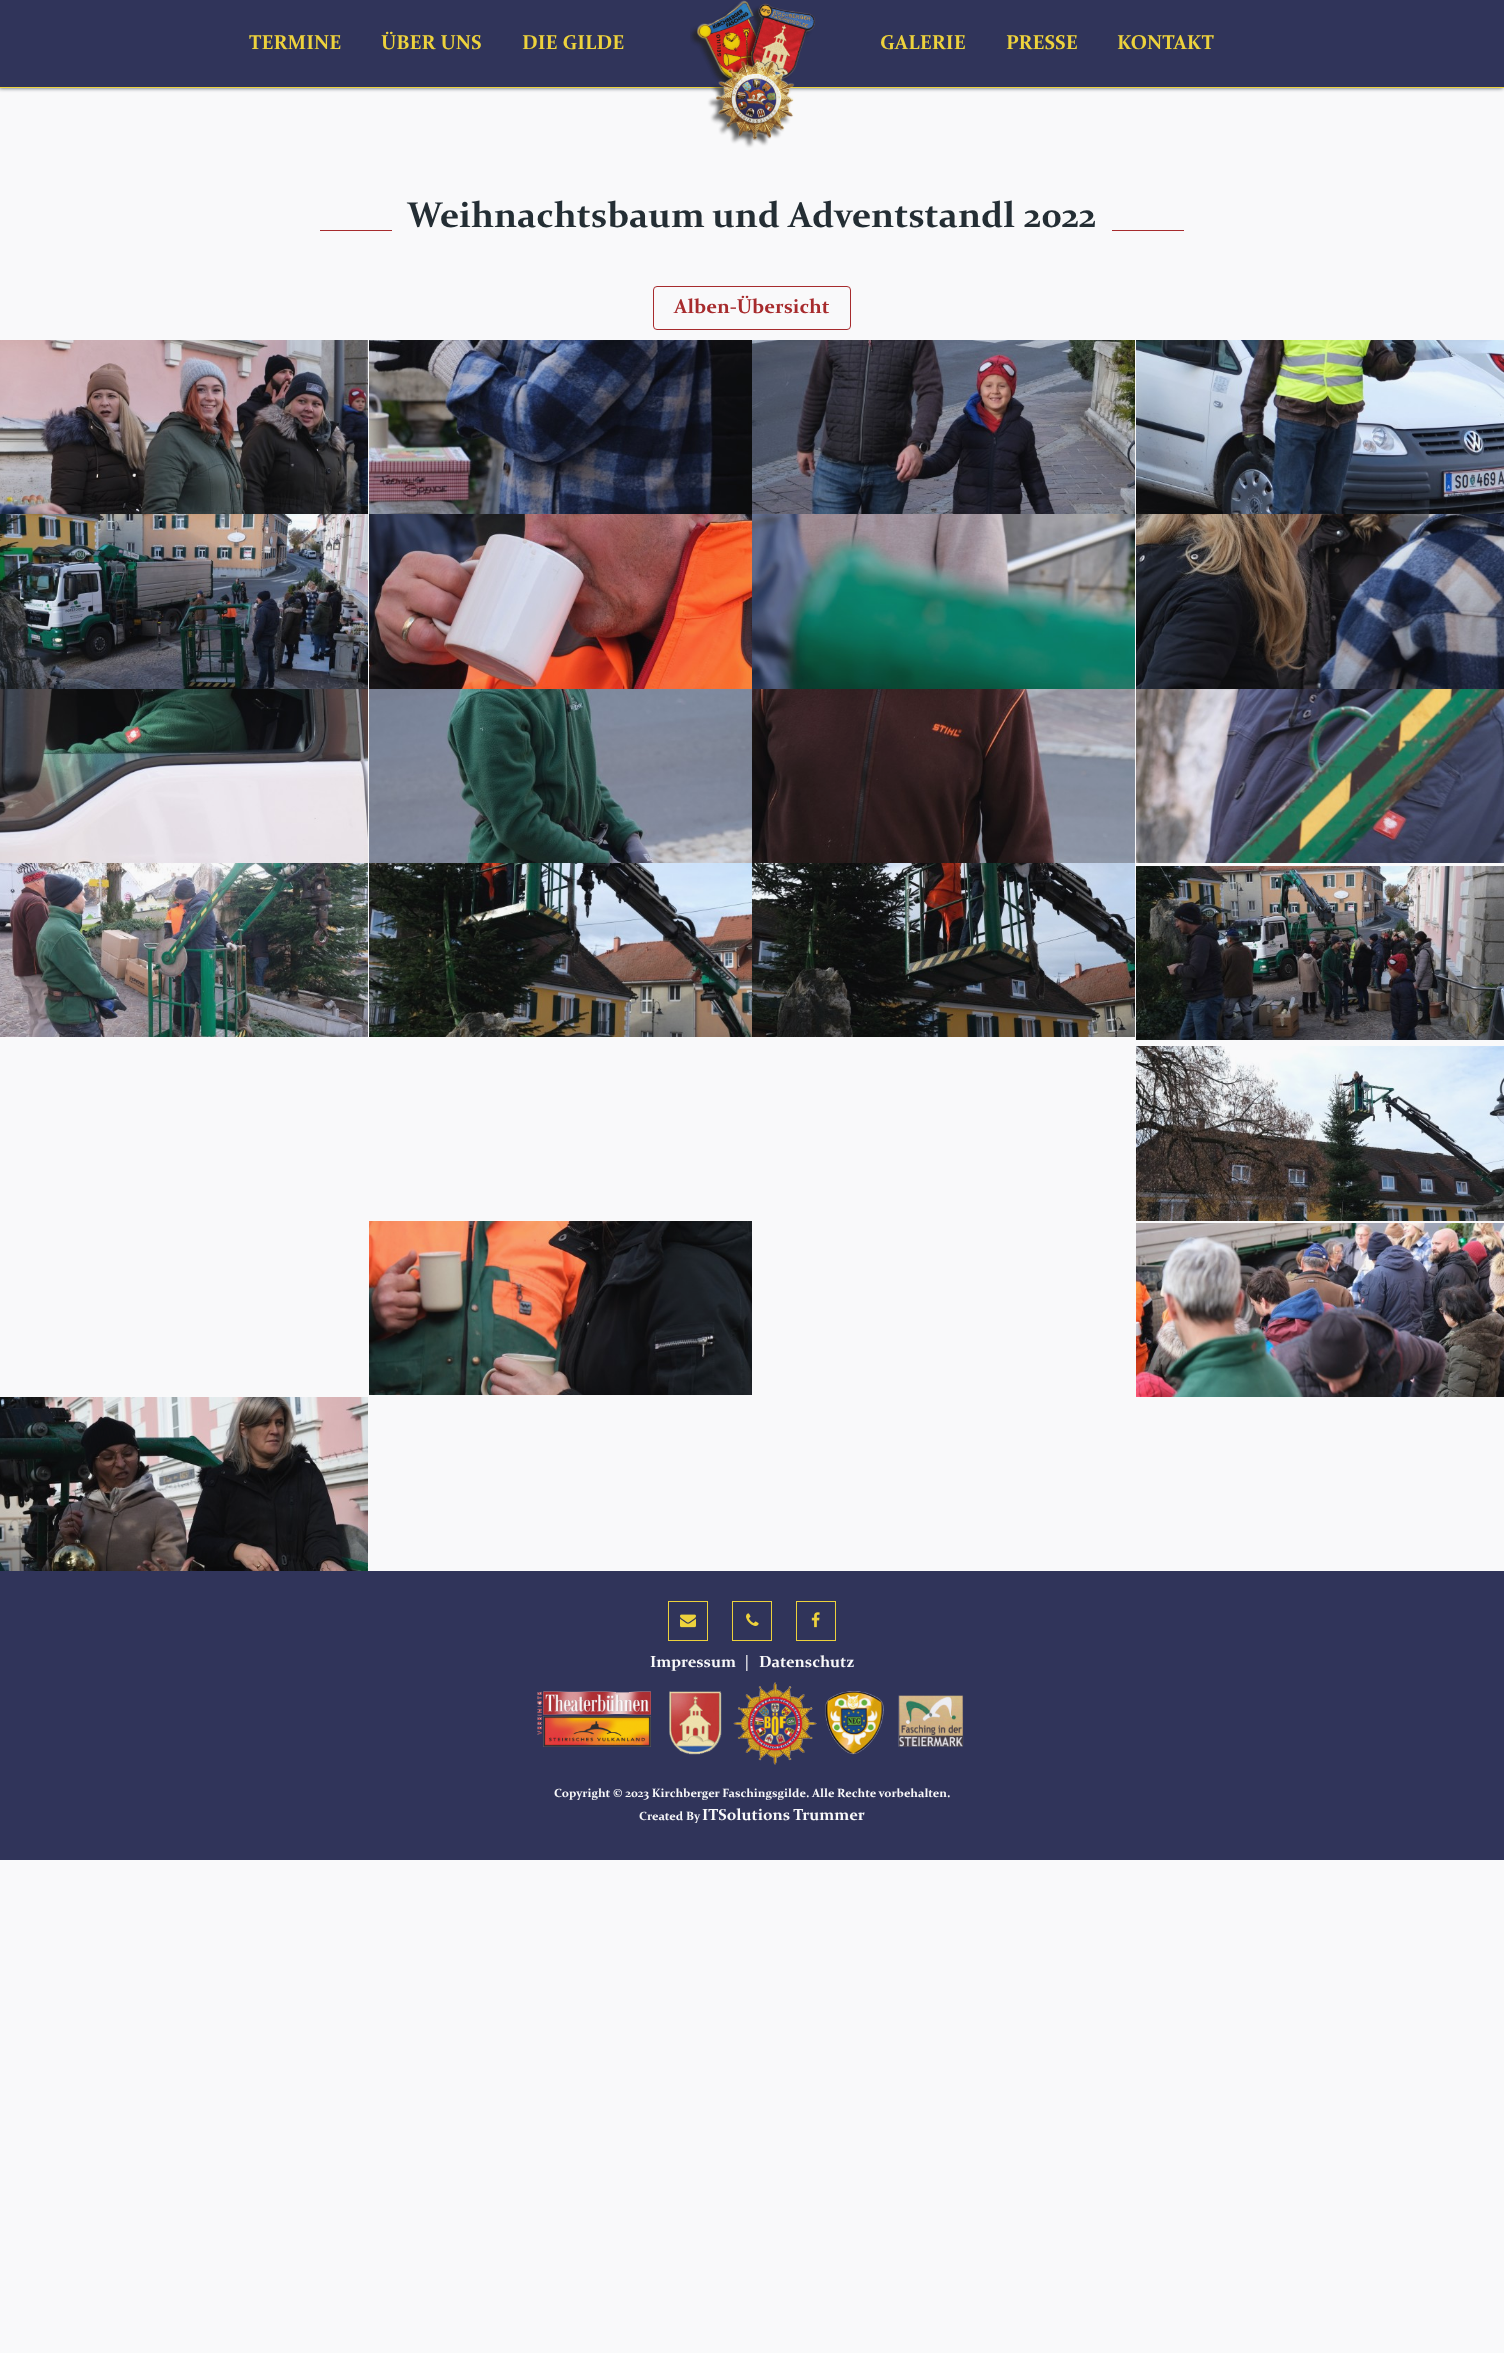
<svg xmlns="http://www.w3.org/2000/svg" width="1504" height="2358">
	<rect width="100%" height="100%" fill="#FFFFFF" />
	<rect x="0" y="88" width="1504" height="2265" fill="#F9F9FA" />
	<rect x="-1" y="0" width="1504" height="88" fill="#49545B" filter="blur(2px)" />
	<rect x="0" y="0" width="1504" height="87" fill="#30345A" />
	<rect x="0" y="87" width="1504" height="1" fill="#EDD23C" />
	<g font-family="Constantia" font-size="20" font-weight="700" fill="#EDD23C">
		<text x="249" y="49">TERMINE</text>
		<text x="381" y="49">ÜBER UNS</text>
		<text x="522" y="49">DIE GILDE</text>
	</g>
	<image x="690" y="0" width="126" height="148" href="assets/img1.png" />
	<g font-family="Constantia" font-size="20" font-weight="700" fill="#EDD23C">
		<text x="880" y="49">GALERIE</text>
		<text x="1006" y="49">PRESSE</text>
		<text x="1117" y="49">KONTAKT</text>
	</g>
	<text x="407" y="227" font-family="Constantia" font-size="36" font-weight="700" fill="#242E34">Weihnachtsbaum und Adventstandl 2022</text>
	<rect x="320" y="230" width="72" height="1" fill="#A72B2D" />
	<rect x="1112" y="230" width="72" height="1" fill="#A72B2D" />
	<rect x="653.5" y="286.5" width="197" height="43" rx="3.5" fill="none" stroke="#A72B2D" />
	<text x="674" y="313" font-family="Constantia" font-size="20" font-weight="700" fill="#A72B2D">Alben-Übersicht</text>
	<image x="0" y="340" width="368" height="174" href="assets/img2.png" />
	<image x="369" y="340" width="383" height="174" href="assets/img3.png" />
	<image x="752" y="340" width="383" height="174" href="assets/img4.png" />
	<image x="1136" y="340" width="368" height="174" href="assets/img5.png" />
	<image x="0" y="514" width="368" height="175" href="assets/img6.png" />
	<image x="369" y="514" width="383" height="175" href="assets/img7.png" />
	<image x="752" y="514" width="383" height="175" href="assets/img8.png" />
	<image x="1136" y="514" width="368" height="175" href="assets/img9.png" />
	<image x="0" y="689" width="368" height="174" href="assets/img10.png" />
	<image x="369" y="689" width="383" height="174" href="assets/img11.png" />
	<image x="752" y="689" width="383" height="174" href="assets/img12.png" />
	<image x="1136" y="689" width="368" height="174" href="assets/img13.png" />
	<image x="0" y="863" width="368" height="174" href="assets/img14.png" />
	<image x="369" y="863" width="383" height="174" href="assets/img15.png" />
	<image x="752" y="863" width="383" height="174" href="assets/img16.png" />
	<image x="1136" y="866" width="368" height="174" href="assets/img17.png" />
	<image x="1136" y="1046" width="368" height="175" href="assets/img18.png" />
	<image x="369" y="1221" width="383" height="174" href="assets/img19.png" />
	<image x="1136" y="1223" width="368" height="174" href="assets/img20.png" />
	<image x="0" y="1397" width="368" height="174" href="assets/img21.png" />
	<rect x="0" y="1571" width="1504" height="289" fill="#30345A" />
	<rect x="668.5" y="1601.5" width="39" height="39" fill="none" stroke="#EDD23C" />
	<image x="680" y="1614" width="16" height="14" href="assets/img22.png" />
	<rect x="732.5" y="1601.5" width="39" height="39" fill="none" stroke="#EDD23C" />
	<image x="746" y="1613" width="13" height="13" href="assets/img23.png" />
	<rect x="796.5" y="1601.5" width="39" height="39" fill="none" stroke="#EDD23C" />
	<image x="811" y="1612" width="9" height="16" href="assets/img24.png" />
	<g font-family="Constantia" font-size="16" font-weight="700" fill="#F9F9FA">
		<text x="650" y="1667">Impressum</text>
		<text x="744" y="1667">|</text>
		<text x="759" y="1667">Datenschutz</text>
	</g>
	<image x="537" y="1682" width="427" height="83" href="assets/img25.png" />
	<g font-family="Constantia" font-size="12" font-weight="700" fill="#F9F9FA">
		<text x="554" y="1797">Copyright © 2023 Kirchberger Faschingsgilde. Alle Rechte vorbehalten.</text>
		<text x="639" y="1820">Created By</text>
	</g>
	<text x="702" y="1820" font-family="Constantia" font-size="16" font-weight="700" fill="#F9F9FA">ITSolutions Trummer</text>
</svg>
